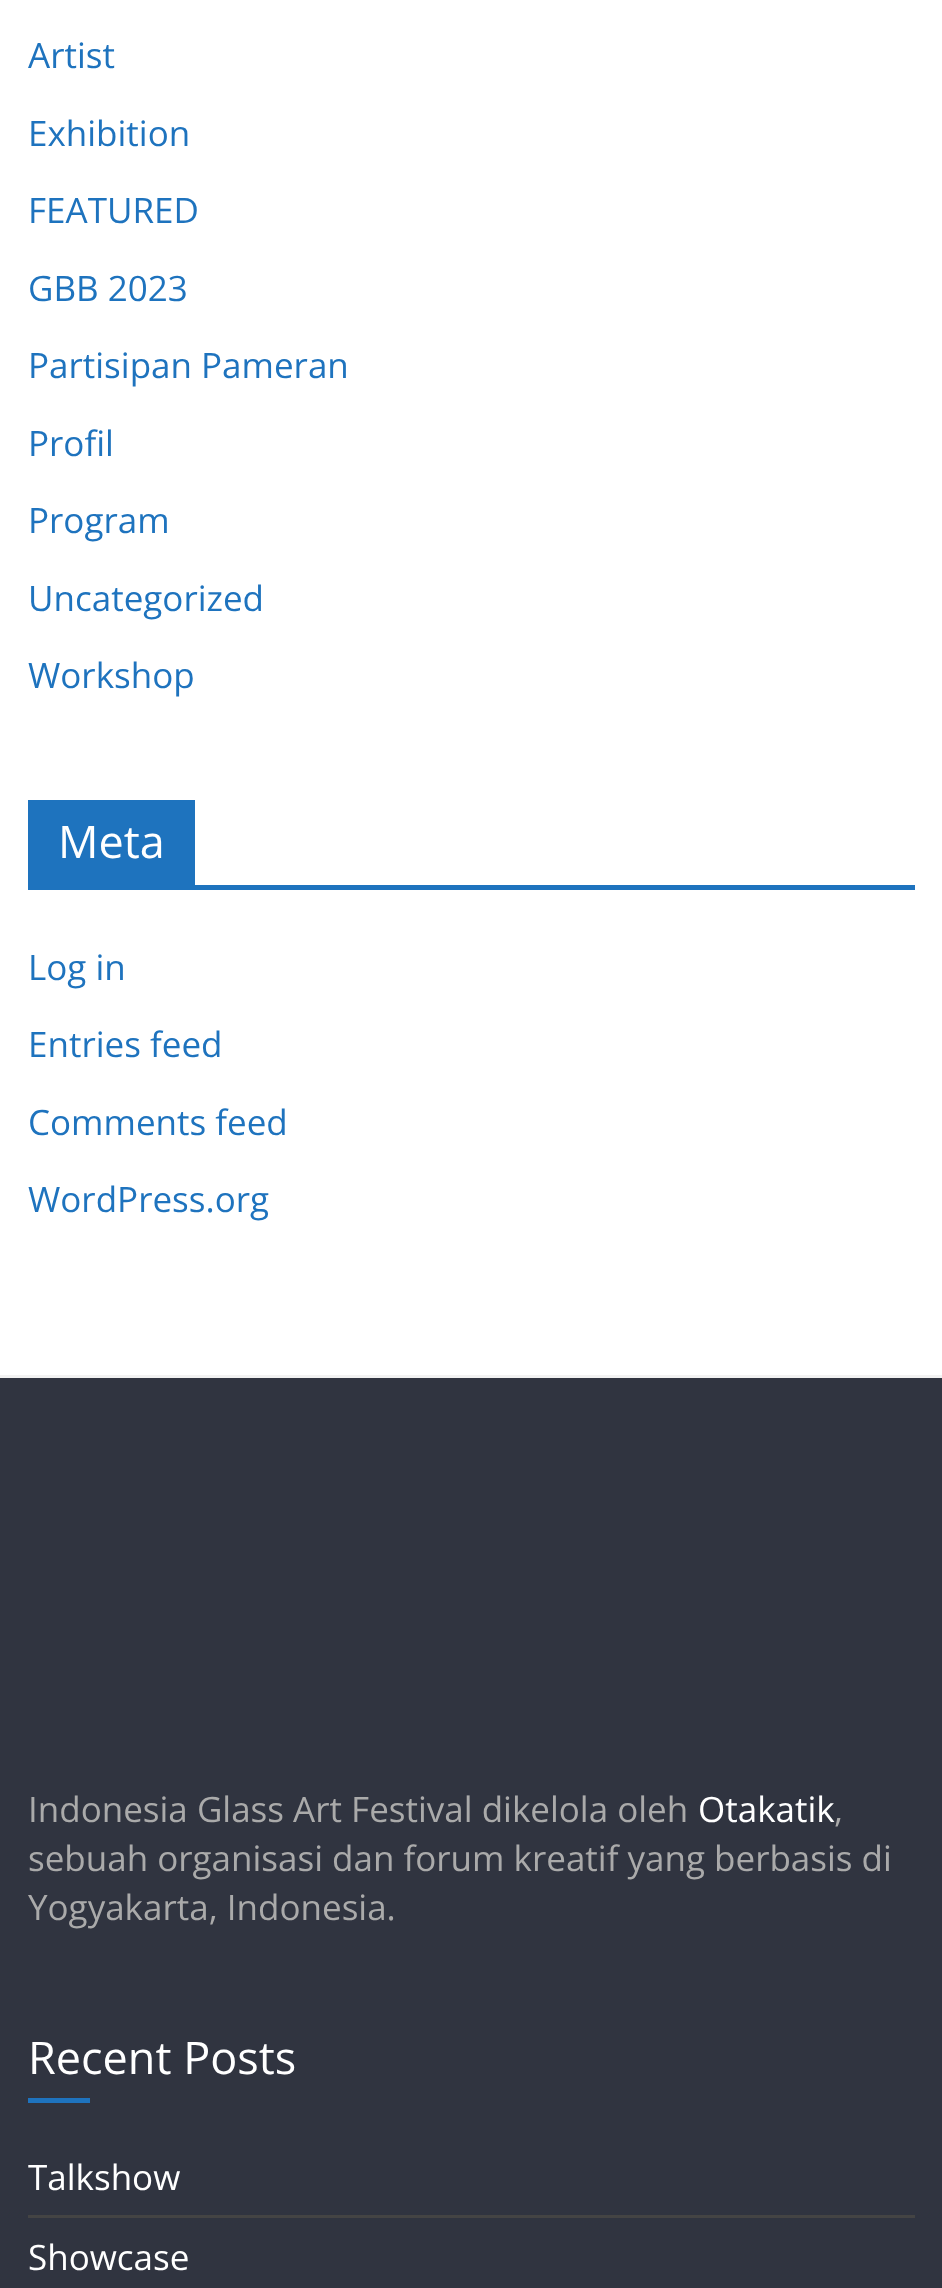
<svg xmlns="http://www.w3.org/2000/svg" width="942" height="2288">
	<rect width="100%" height="100%" fill="#FFFFFF" />
	<g font-family="Open Sans" font-size="35" fill="#1E73BE">
		<text x="28" y="68">Artist</text>
		<text x="28" y="146">Exhibition</text>
		<text x="28" y="223">FEATURED</text>
		<text x="28" y="301">GBB 2023</text>
		<text x="28" y="378">Partisipan Pameran</text>
		<text x="28" y="456">Profil</text>
		<text x="28" y="533">Program</text>
		<text x="28" y="611">Uncategorized</text>
		<text x="28" y="688">Workshop</text>
	</g>
	<rect x="28" y="885" width="887" height="5" fill="#1E73BE" />
	<rect x="28" y="800" width="167" height="85" fill="#1E73BE" />
	<text x="58" y="858" font-family="Open Sans" font-size="45" fill="#FFFFFF">Meta</text>
	<g font-family="Open Sans" font-size="35" fill="#1E73BE">
		<text x="28" y="980">Log in</text>
		<text x="28" y="1057">Entries feed</text>
		<text x="28" y="1135">Comments feed</text>
		<text x="28" y="1212">WordPress.org</text>
	</g>
	<rect x="0" y="1378" width="942" height="910" fill="#303440" />
	<rect x="0" y="1375" width="942" height="3" fill="#F2F2F2" />
	<text x="28" y="1822" font-family="Open Sans" font-size="35" fill="#AAAAAA">Indonesia Glass Art Festival dikelola oleh</text>
	<text x="698" y="1822" font-family="Open Sans" font-size="35" fill="#FFFFFF">Otakatik</text>
	<g font-family="Open Sans" font-size="35" fill="#AAAAAA">
		<text x="834" y="1822">,</text>
		<text x="28" y="1871">sebuah organisasi dan forum kreatif yang berbasis di</text>
		<text x="28" y="1920">Yogyakarta, Indonesia.</text>
	</g>
	<text x="28" y="2074" font-family="Open Sans" font-size="45" fill="#FFFFFF">Recent Posts</text>
	<rect x="28" y="2098" width="62" height="5" fill="#1E73BE" />
	<rect x="28" y="2215" width="887" height="3" fill="#444444" />
	<g font-family="Open Sans" font-size="35" fill="#FFFFFF">
		<text x="28" y="2190">Talkshow</text>
		<text x="28" y="2270">Showcase</text>
	</g>
</svg>
